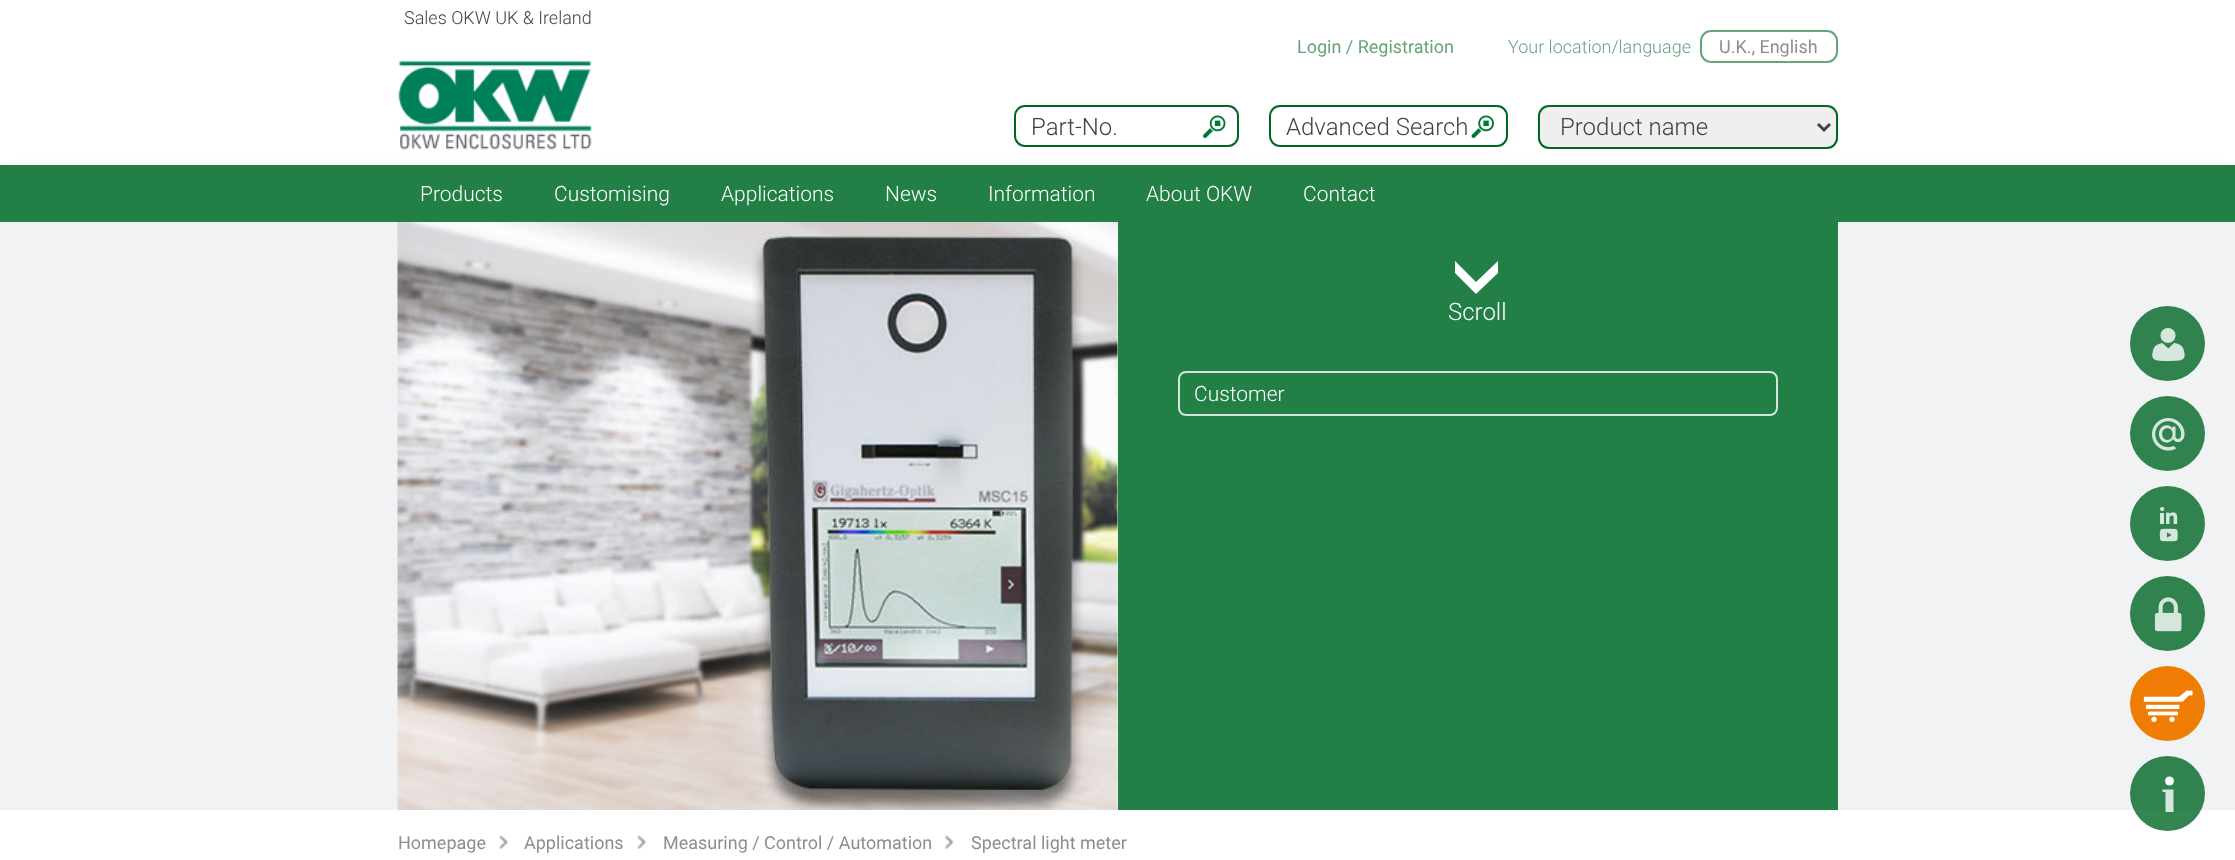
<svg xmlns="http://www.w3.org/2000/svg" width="2235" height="860">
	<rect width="100%" height="100%" fill="#FFFFFF" />
	<text x="404" y="24" font-family="Roboto" font-size="18" font-weight="300" fill="#424242">Sales OKW UK &amp; Ireland</text>
	<rect x="18" y="195" width="2199" height="21" fill="#000000" fill-opacity="0.75" filter="blur(16.5px)" />
	<image x="398" y="61" width="194" height="89" href="assets/img1.png" />
	<text x="1297" y="53" font-family="Roboto" font-size="18" fill="#66A47C">Login / Registration</text>
	<text x="1508" y="53" font-family="Roboto" font-size="18" font-weight="300" fill="#66A47C">Your location/language</text>
	<rect x="1701" y="31" width="136" height="31" rx="10" fill="none" stroke="#66A47C" stroke-width="2" />
	<text x="1719" y="53" font-family="Roboto" font-size="18" fill="#8E8E8E">U.K., English</text>
	<image x="1203" y="115" width="23" height="23" href="assets/img2.png" />
	<rect x="1015" y="106" width="223" height="40" rx="10" fill="none" stroke="#006725" stroke-width="2" />
	<text x="1031" y="135" font-family="Roboto" font-size="24" font-weight="300" fill="#424242">Part-No.</text>
	<image x="1471" y="115" width="23" height="23" href="assets/img3.png" />
	<rect x="1270" y="106" width="237" height="40" rx="10" fill="none" stroke="#006725" stroke-width="2" />
	<text x="1286" y="135" font-family="Roboto" font-size="24" font-weight="300" fill="#424242">Advanced Search</text>
	<rect x="1539" y="106" width="298" height="42" rx="10" fill="#EFEFEF" stroke="#006725" stroke-width="2" />
	<path d="M1818 124L1824 130L1830 124" fill="none" stroke="#424242" stroke-width="3" />
	<text x="1560" y="135" font-family="Roboto" font-size="24" font-weight="300" fill="#424242">Product name</text>
	<rect x="0" y="165" width="2235" height="57" fill="#227F46" />
	<g font-family="Roboto" font-size="21" font-weight="300" fill="#FFFFFF">
		<text x="420" y="201">Products</text>
		<text x="554" y="201">Customising</text>
		<text x="721" y="201">Applications</text>
		<text x="885" y="201">News</text>
		<text x="988" y="201">Information</text>
		<text x="1146" y="201">About OKW</text>
		<text x="1303" y="201">Contact</text>
	</g>
	<rect x="0" y="222" width="2235" height="588" fill="#F1F2F3" />
	<image x="397" y="222" width="721" height="588" href="assets/img4.png" />
	<rect x="1118" y="222" width="720" height="588" fill="#227F46" />
	<path d="M1455 261L1476 282L1498 261V273L1476 294L1455 273Z" fill="#FFFFFF" />
	<text x="1448" y="320" font-family="Roboto" font-size="24" font-weight="300" fill="#FFFFFF">Scroll</text>
	<rect x="1179" y="372" width="598" height="43" rx="7" fill="none" stroke="#D3E5DA" stroke-width="2" />
	<text x="1194" y="401" font-family="Roboto" font-size="21" font-weight="300" fill="#FFFFFF">Customer</text>
	<circle cx="2167.5" cy="343.5" r="37.5" fill="#30834E" />
	<image x="2152" y="328" width="33" height="34" href="assets/img5.png" />
	<circle cx="2167.5" cy="433.5" r="37.5" fill="#30834E" />
	<image x="2152" y="418" width="33" height="33" href="assets/img6.png" />
	<circle cx="2167.5" cy="523.5" r="37.5" fill="#30834E" />
	<image x="2159" y="507" width="19" height="35" href="assets/img7.png" />
	<circle cx="2167.5" cy="613.5" r="37.5" fill="#30834E" />
	<image x="2154" y="597" width="28" height="35" href="assets/img8.png" />
	<circle cx="2167.5" cy="703.5" r="37.5" fill="#EF7D00" />
	<image x="2135" y="671" width="65" height="65" href="assets/img9.png" />
	<circle cx="2167.5" cy="793.5" r="37.5" fill="#006725" fill-opacity="0.8" />
	<path d="M2165.5 789.5H2162.5V792H2165.5V812H2173.5V789.5Z" fill="#FFFFFF" fill-opacity="0.8" />
	<circle cx="2169.5" cy="781" r="4.5" fill="#FCFCFD" />
	<image x="499" y="835" width="10" height="14" href="assets/img10.png" />
	<text x="398" y="849" font-family="Roboto" font-size="18" fill="#8E8E8E">Homepage</text>
	<image x="637" y="835" width="10" height="14" href="assets/img10.png" />
	<text x="524" y="849" font-family="Roboto" font-size="18" fill="#8E8E8E">Applications</text>
	<image x="945" y="835" width="9" height="14" href="assets/img11.png" />
	<g font-family="Roboto" font-size="18" fill="#8E8E8E">
		<text x="663" y="849">Measuring / Control / Automation</text>
		<text x="971" y="849">Spectral light meter</text>
	</g>
</svg>
